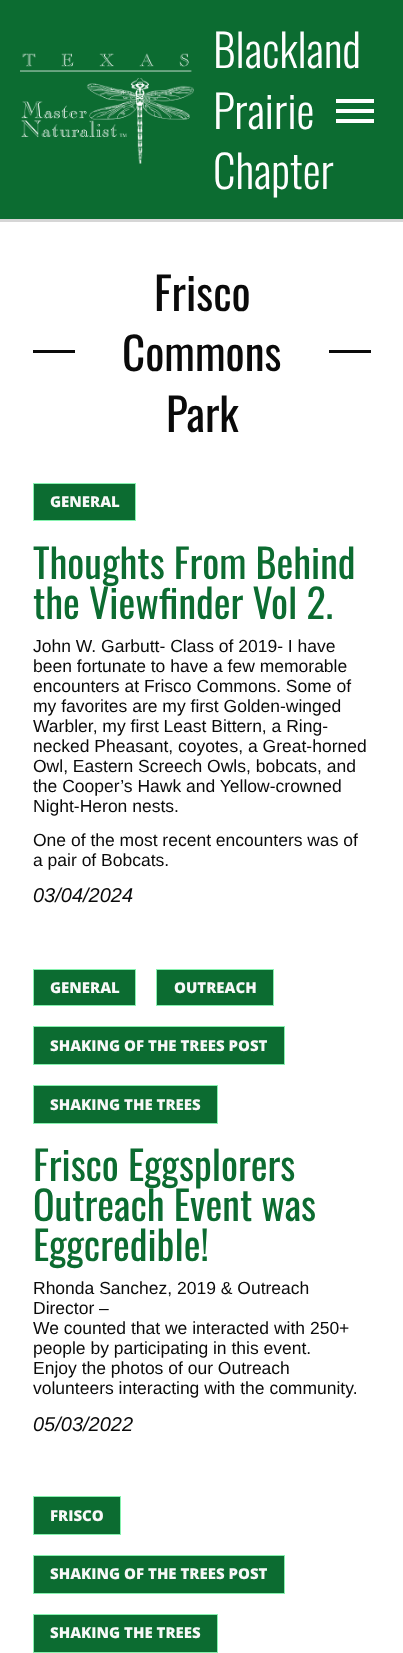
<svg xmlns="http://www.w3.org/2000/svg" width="403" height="1653">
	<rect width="100%" height="100%" fill="#FFFFFF" />
	<rect x="0" y="0" width="403" height="219" fill="#0C6C31" />
	<rect x="0" y="219" width="403" height="3" fill="#D6D6D6" />
	<image x="20" y="53" width="174" height="111" href="assets/img1.png" />
	<g font-family="Oswald" font-size="45" font-weight="300" fill="#FEFEFE">
		<text x="213" y="68">Blackland</text>
		<text x="213" y="129">Prairie</text>
		<text x="213" y="189">Chapter</text>
	</g>
	<rect x="336" y="119" width="38" height="4" fill="#FEFEFE" />
	<rect x="336" y="109" width="38" height="4" fill="#FEFEFE" />
	<rect x="336" y="99" width="38" height="4" fill="#FEFEFE" />
	<rect x="33" y="350" width="42" height="3" fill="#0A0A0A" />
	<g font-family="Oswald" font-size="45" fill="#0A0A0A">
		<text x="154" y="311">Frisco</text>
		<text x="122" y="371">Commons</text>
		<text x="166" y="432">Park</text>
	</g>
	<rect x="329" y="350" width="42" height="3" fill="#0A0A0A" />
	<rect x="33.5" y="483.5" width="102" height="37" fill="#0C6C31" stroke="#86F2AF" />
	<text x="50" y="507" font-family="Open Sans" font-size="15" font-weight="800" fill="#F8F8F8">GENERAL</text>
	<g font-family="Oswald" font-size="40" fill="#0C6C31">
		<text x="33" y="579">Thoughts From Behind</text>
		<text x="33" y="619">the Viewfinder Vol 2.</text>
	</g>
	<g font-family="Liberation Sans" font-size="17.5" fill="#0A0A0A">
		<text x="33" y="652">John W. Garbutt- Class of 2019- I have</text>
		<text x="33" y="672">been fortunate to have a few memorable</text>
		<text x="33" y="692">encounters at Frisco Commons. Some of</text>
		<text x="33" y="712">my favorites are my first Golden-winged</text>
		<text x="33" y="732">Warbler, my first Least Bittern, a Ring-</text>
		<text x="33" y="752">necked Pheasant, coyotes, a Great-horned</text>
		<text x="33" y="772">Owl, Eastern Screech Owls, bobcats, and</text>
		<text x="33" y="792">the Cooper’s Hawk and Yellow-crowned</text>
		<text x="33" y="812">Night-Heron nests.</text>
		<text x="33" y="846">One of the most recent encounters was of</text>
		<text x="33" y="866">a pair of Bobcats.</text>
	</g>
	<text x="33" y="902" font-family="Liberation Sans" font-size="20" font-style="italic" fill="#0A0A0A">03/04/2024</text>
	<rect x="33.5" y="969.5" width="102" height="36" fill="#0C6C31" stroke="#86F2AF" />
	<text x="50" y="993" font-family="Open Sans" font-size="15" font-weight="800" fill="#F8F8F8">GENERAL</text>
	<rect x="156.5" y="969.5" width="117" height="36" fill="#0C6C31" stroke="#86F2AF" />
	<text x="174" y="993" font-family="Open Sans" font-size="15" font-weight="800" fill="#F8F8F8">OUTREACH</text>
	<rect x="33.5" y="1026.5" width="251" height="38" fill="#0C6C31" stroke="#86F2AF" />
	<text x="50" y="1051" font-family="Open Sans" font-size="15" font-weight="800" fill="#F8F8F8">SHAKING OF THE TREES POST</text>
	<rect x="33.5" y="1085.5" width="184" height="38" fill="#0C6C31" stroke="#86F2AF" />
	<text x="50" y="1110" font-family="Open Sans" font-size="15" font-weight="800" fill="#F8F8F8">SHAKING THE TREES</text>
	<g font-family="Oswald" font-size="40" fill="#0C6C31">
		<text x="33" y="1181">Frisco Eggsplorers</text>
		<text x="33" y="1221">Outreach Event was</text>
		<text x="33" y="1261">Eggcredible!</text>
	</g>
	<g font-family="Liberation Sans" font-size="17.5" fill="#0A0A0A">
		<text x="33" y="1294">Rhonda Sanchez, 2019 &amp; Outreach</text>
		<text x="33" y="1314">Director –</text>
		<text x="33" y="1334">We counted that we interacted with 250+</text>
		<text x="33" y="1354">people by participating in this event.</text>
		<text x="33" y="1374">Enjoy the photos of our Outreach</text>
		<text x="33" y="1394">volunteers interacting with the community.</text>
	</g>
	<text x="33" y="1431" font-family="Liberation Sans" font-size="20" font-style="italic" fill="#0A0A0A">05/03/2022</text>
	<rect x="33.5" y="1496.5" width="87" height="38" fill="#0C6C31" stroke="#86F2AF" />
	<text x="50" y="1521" font-family="Open Sans" font-size="15" font-weight="800" fill="#F8F8F8">FRISCO</text>
	<rect x="33.5" y="1555.5" width="251" height="38" fill="#0C6C31" stroke="#86F2AF" />
	<text x="50" y="1579" font-family="Open Sans" font-size="15" font-weight="800" fill="#F8F8F8">SHAKING OF THE TREES POST</text>
	<rect x="33.5" y="1614.5" width="184" height="38" fill="#0C6C31" stroke="#86F2AF" />
	<text x="50" y="1638" font-family="Open Sans" font-size="15" font-weight="800" fill="#F8F8F8">SHAKING THE TREES</text>
</svg>
